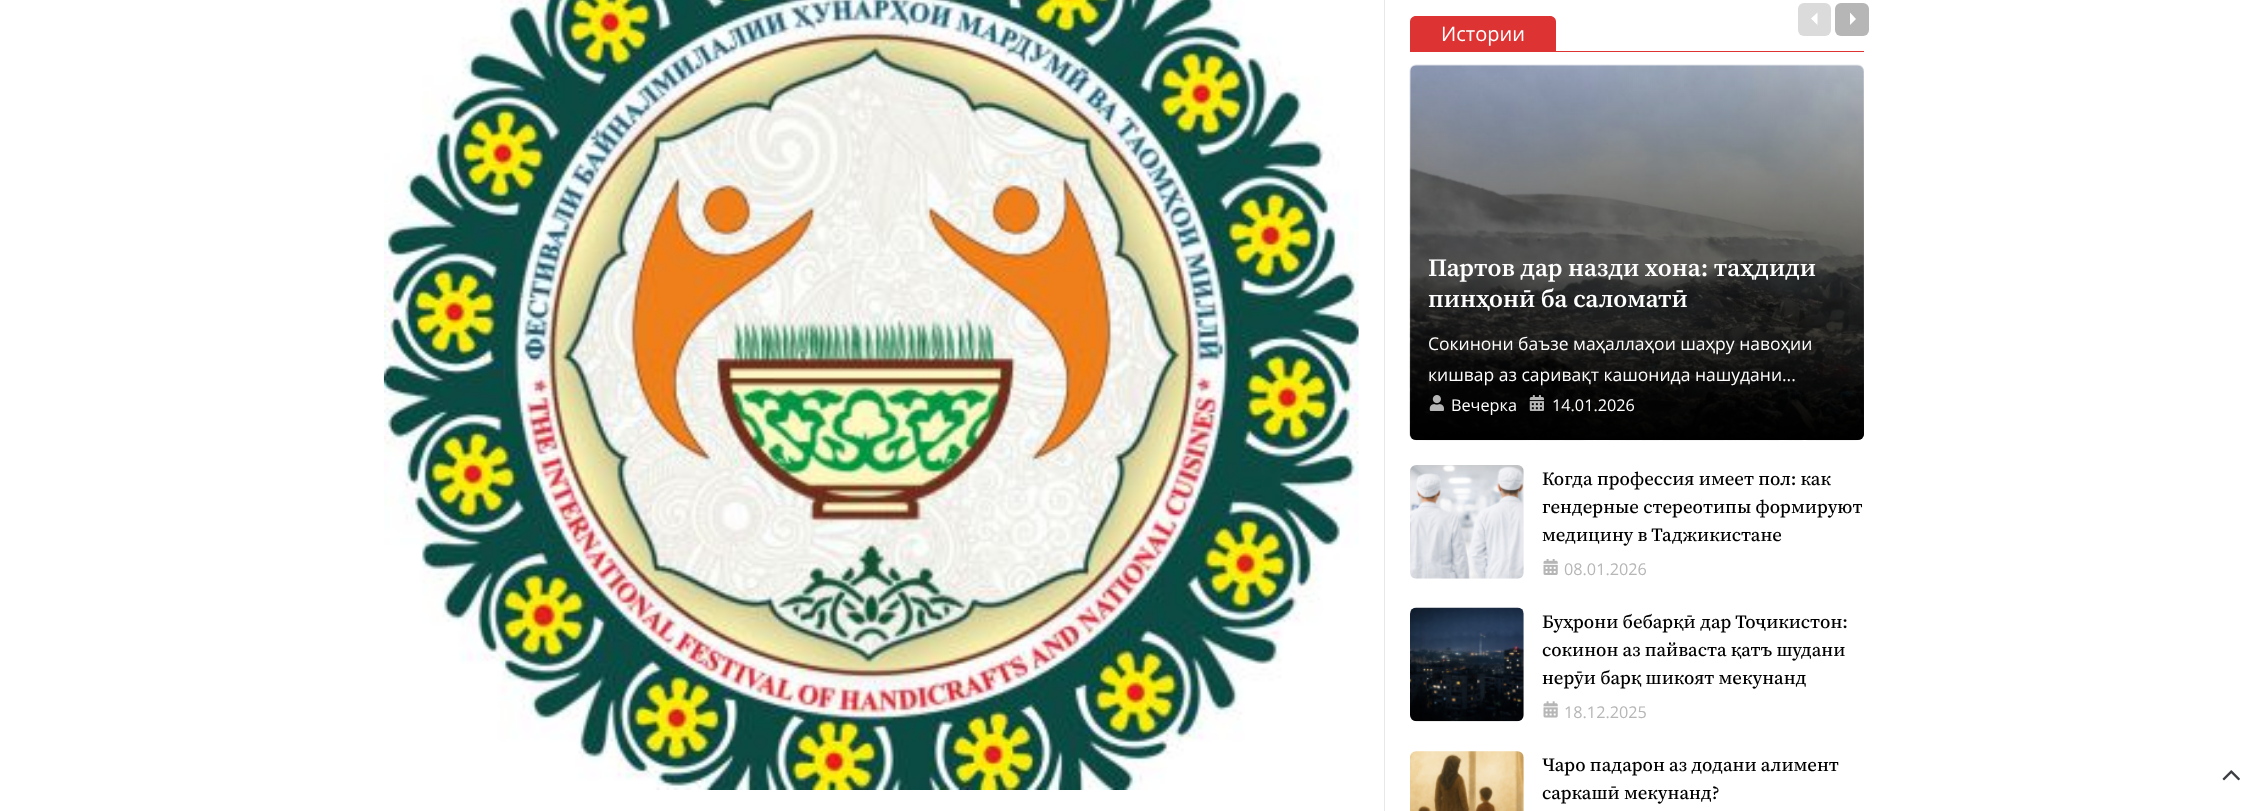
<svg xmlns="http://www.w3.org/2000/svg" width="2266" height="811">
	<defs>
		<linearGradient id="g1" gradientUnits="userSpaceOnUse" x1="1637" y1="65" x2="1637" y2="440"><stop offset="0" stop-color="#000000" stop-opacity="0" /><stop offset="1" stop-color="#000000" /></linearGradient>
	</defs>
	<rect width="100%" height="100%" fill="#FFFFFF" />
	<image x="383" y="0" width="976" height="790" href="assets/img1.png" />
	<rect x="1384" y="0" width="1" height="811" fill="#E8E8E8" />
	<rect x="1410" y="51" width="454" height="1" fill="#DD3333" />
	<path d="M1416 16H1550C1553.5 16 1556 18.5 1556 22V51H1410V22C1410 18.5 1412.5 16 1416 16Z" fill="#DD3333" />
	<text x="1441" y="41" font-family="Open Sans" font-size="20" fill="#FFFFFF">Истории</text>
	<rect x="1798" y="3" width="33" height="33" rx="6" fill="#DBDBDB" />
	<path d="M1817.5 12.5V25L1811 18.5Z" fill="#FFFFFF" />
	<rect x="1835" y="3" width="34" height="33" rx="6" fill="#B6B6B6" />
	<path d="M1850 25V12.5L1856 19Z" fill="#FFFFFF" />
	<image x="1409" y="64" width="455" height="377" href="assets/img2.png" />
	<rect x="1410" y="65" width="454" height="375" rx="6" fill="url(#g1)" />
	<g font-family="'Source Serif 4'" font-size="25" font-weight="600" fill="#FFFFFF">
		<text x="1428" y="276">Партов дар назди хона: таҳдиди</text>
		<text x="1428" y="307">пинҳонӣ ба саломатӣ</text>
	</g>
	<g font-family="Open Sans" font-size="17.5" fill="#FFFFFF">
		<text x="1428" y="350">Сокинони баъзе маҳаллаҳои шаҳру навоҳии</text>
		<text x="1428" y="381">кишвар аз саривақт кашонида нашудани...</text>
	</g>
	<image x="1429" y="395" width="15" height="16" href="assets/img3.png" />
	<text x="1451" y="411" font-family="Open Sans" font-size="16.25" fill="#FFFFFF">Вечерка</text>
	<image x="1529" y="395" width="15" height="16" href="assets/img4.png" />
	<text x="1552" y="411" font-family="Open Sans" font-size="16.25" fill="#FFFFFF">14.01.2026</text>
	<image x="1410" y="465" width="114" height="114" href="assets/img5.png" />
	<g font-family="'Source Serif 4'" font-size="18.75" font-weight="500" fill="#000000">
		<text x="1542" y="485">Когда профессия имеет пол: как</text>
		<text x="1542" y="513">гендерные стереотипы формируют</text>
		<text x="1542" y="541">медицину в Таджикистане</text>
	</g>
	<image x="1543" y="559" width="15" height="16" href="assets/img6.png" />
	<text x="1564" y="575" font-family="Open Sans" font-size="16.25" fill="#B6B6B6">08.01.2026</text>
	<image x="1410" y="607" width="114" height="115" href="assets/img7.png" />
	<g font-family="'Source Serif 4'" font-size="18.75" font-weight="500" fill="#000000">
		<text x="1542" y="628">Буҳрони бебарқӣ дар Тоҷикистон:</text>
		<text x="1542" y="656">сокинон аз пайваста қатъ шудани</text>
		<text x="1542" y="684">нерӯи барқ шикоят мекунанд</text>
	</g>
	<image x="1543" y="701" width="15" height="17" href="assets/img8.png" />
	<text x="1564" y="718" font-family="Open Sans" font-size="16.25" fill="#B6B6B6">18.12.2025</text>
	<image x="1410" y="751" width="114" height="60" href="assets/img9.png" />
	<g font-family="'Source Serif 4'" font-size="18.75" font-weight="500" fill="#000000">
		<text x="1542" y="771">Чаро падарон аз додани алимент</text>
		<text x="1542" y="799">саркашӣ мекунанд?</text>
	</g>
	<image x="2222" y="770" width="18" height="11" href="assets/img10.png" />
</svg>
